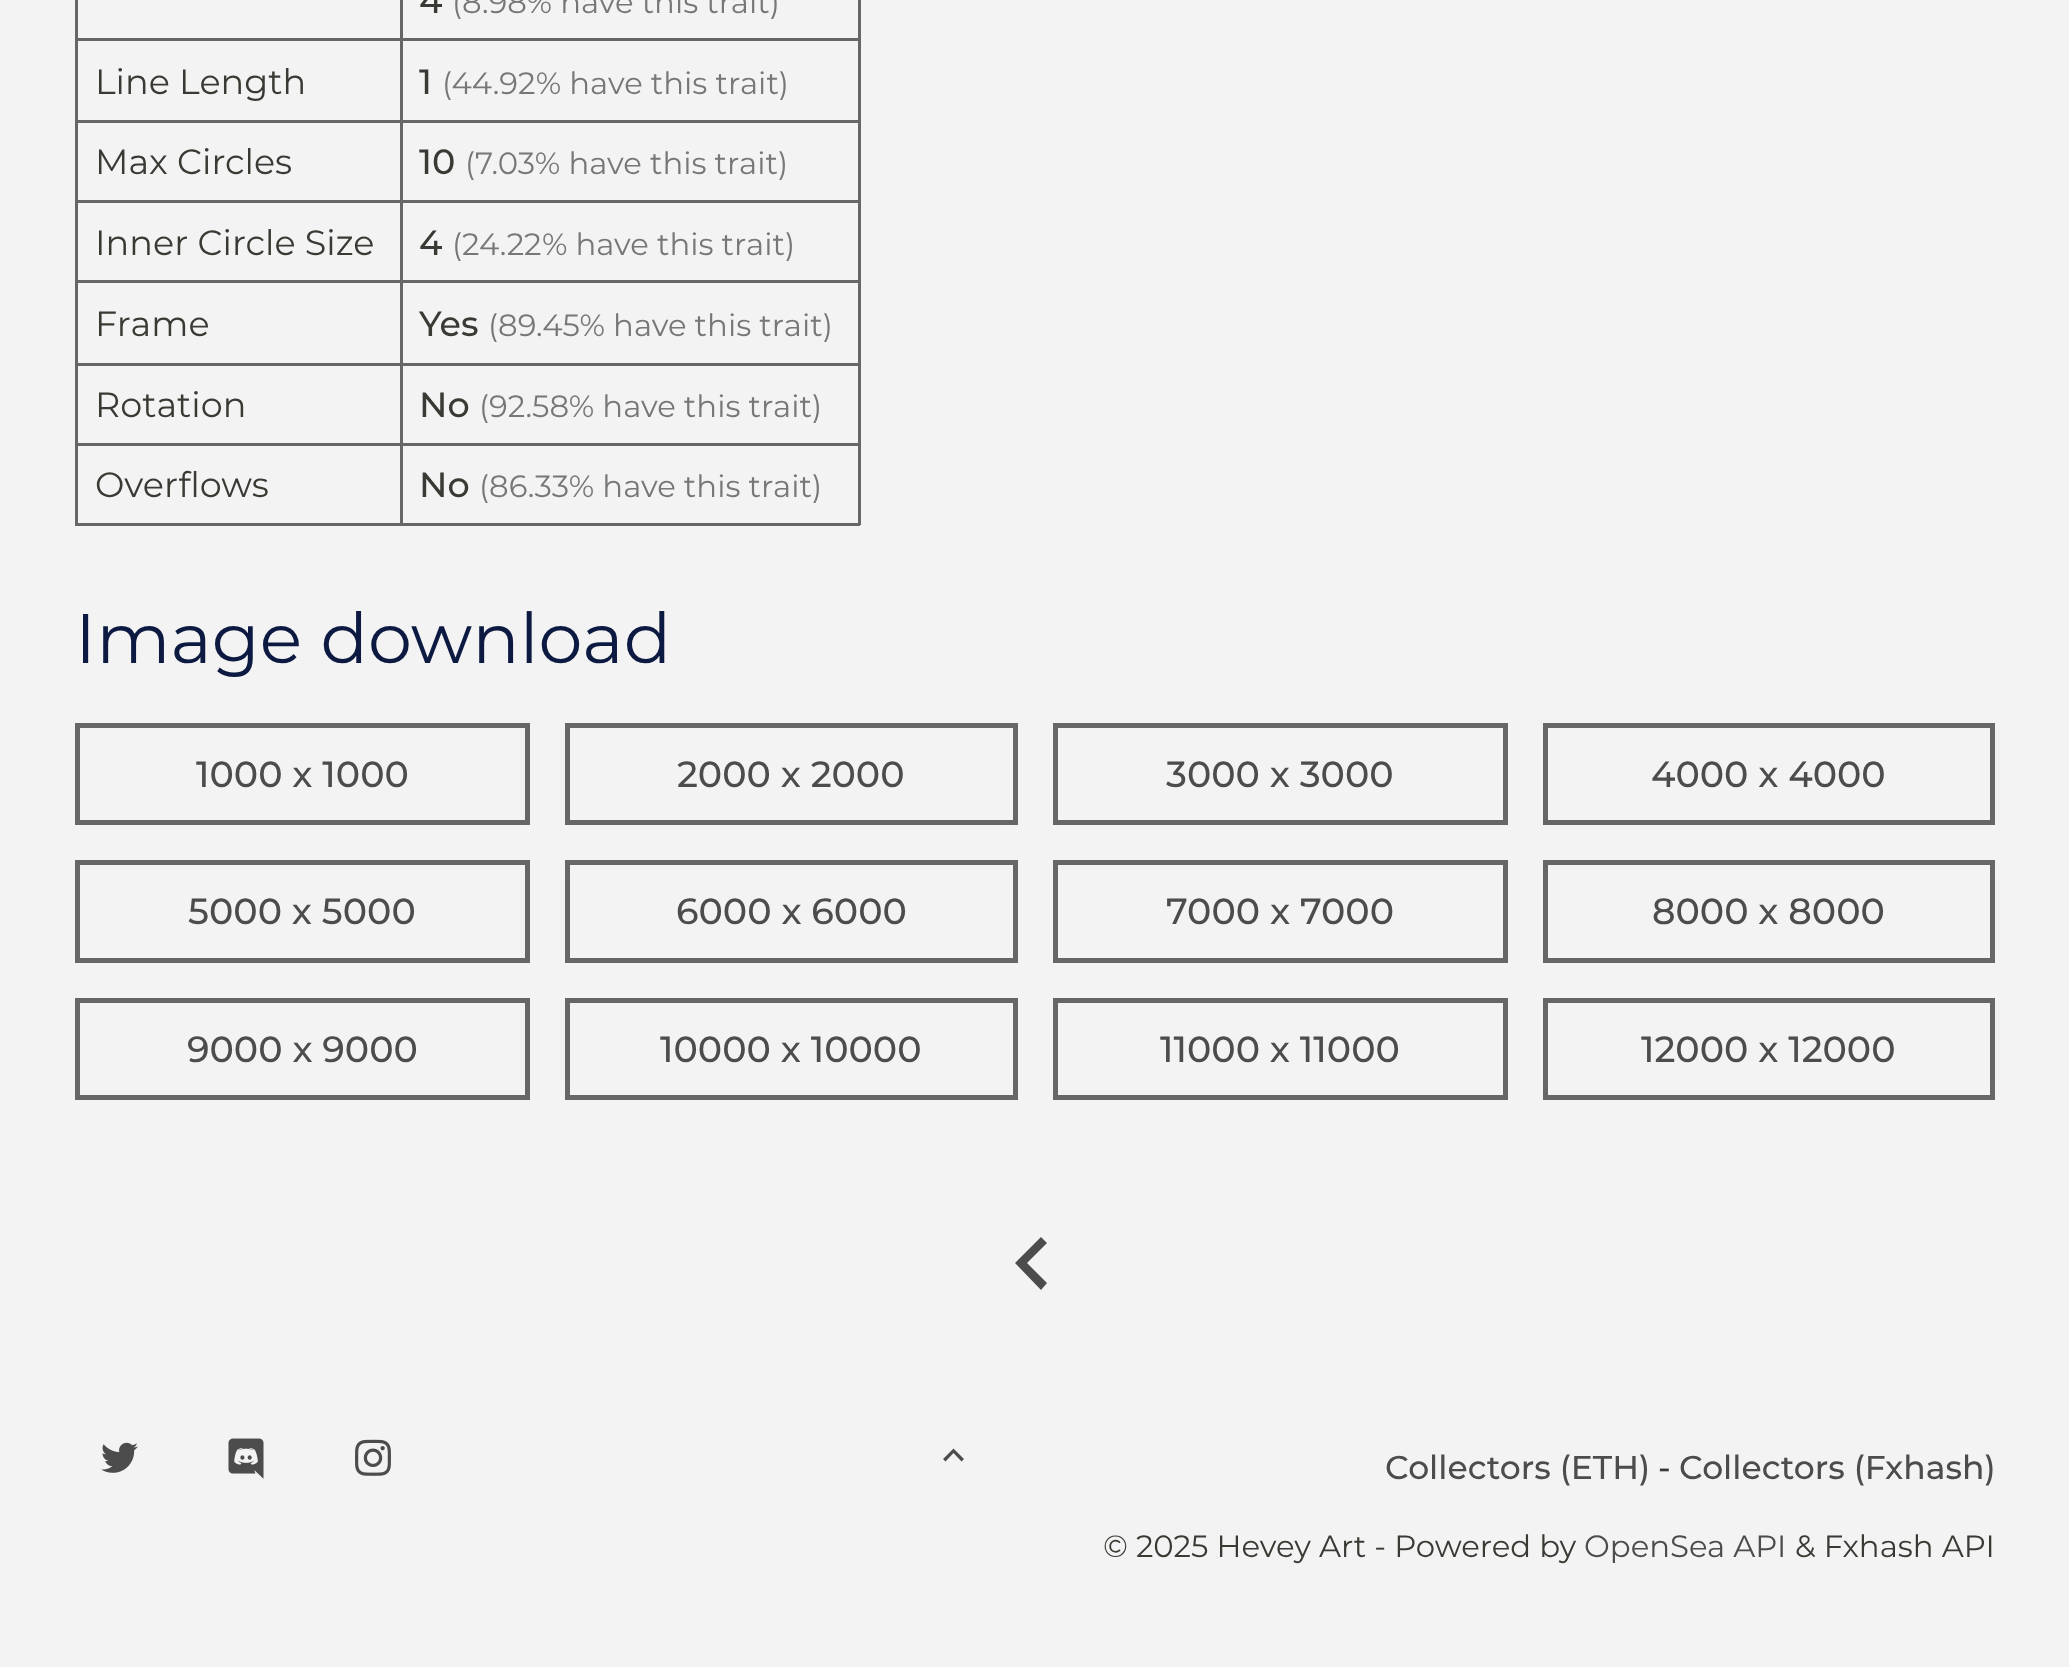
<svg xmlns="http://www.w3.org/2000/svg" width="2069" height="1667">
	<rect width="100%" height="100%" fill="#F3F3F3" />
	<rect x="400" y="38" width="460" height="3" fill="#666666" />
	<rect x="400" y="120" width="460" height="3" fill="#666666" />
	<rect x="400" y="200" width="460" height="3" fill="#666666" />
	<rect x="400" y="280" width="460" height="3" fill="#666666" />
	<rect x="400" y="363" width="460" height="3" fill="#666666" />
	<rect x="400" y="443" width="460" height="3" fill="#666666" />
	<rect x="858" y="443" width="3" height="82" fill="#666666" />
	<rect x="400" y="523" width="460" height="3" fill="#666666" />
	<rect x="400" y="443" width="3" height="82" fill="#666666" />
	<rect x="75" y="443" width="328" height="3" fill="#666666" />
	<rect x="400" y="363" width="3" height="82" fill="#666666" />
	<rect x="75" y="363" width="328" height="3" fill="#666666" />
	<rect x="400" y="280" width="3" height="85" fill="#666666" />
	<rect x="75" y="280" width="328" height="3" fill="#666666" />
	<rect x="400" y="200" width="3" height="83" fill="#666666" />
	<rect x="75" y="200" width="328" height="3" fill="#666666" />
	<rect x="400" y="120" width="3" height="83" fill="#666666" />
	<rect x="75" y="120" width="328" height="3" fill="#666666" />
	<rect x="400" y="38" width="3" height="85" fill="#666666" />
	<rect x="75" y="38" width="328" height="3" fill="#666666" />
	<rect x="400" y="0" width="3" height="40" fill="#666666" />
	<text x="419" y="13" font-family="Montserrat" font-size="35" font-weight="500" fill="#393A34">4</text>
	<text x="452" y="13" font-family="Montserrat" font-size="30.75" fill="#777777">(8.98% have this trait)</text>
	<rect x="75" y="523" width="328" height="3" fill="#666666" />
	<rect x="75" y="443" width="3" height="82" fill="#666666" />
	<rect x="75" y="363" width="3" height="82" fill="#666666" />
	<rect x="75" y="280" width="3" height="85" fill="#666666" />
	<rect x="75" y="200" width="3" height="83" fill="#666666" />
	<rect x="75" y="120" width="3" height="83" fill="#666666" />
	<rect x="75" y="0" width="3" height="123" fill="#666666" />
	<text x="95" y="94" font-family="Montserrat" font-size="35" fill="#393A34">Line Length</text>
	<rect x="858" y="363" width="3" height="82" fill="#666666" />
	<rect x="858" y="280" width="3" height="85" fill="#666666" />
	<rect x="858" y="200" width="3" height="83" fill="#666666" />
	<rect x="858" y="120" width="3" height="83" fill="#666666" />
	<rect x="858" y="0" width="3" height="123" fill="#666666" />
	<text x="419" y="94" font-family="Montserrat" font-size="35" font-weight="500" fill="#393A34">1</text>
	<text x="442" y="94" font-family="Montserrat" font-size="30.75" fill="#777777">(44.92% have this trait)</text>
	<text x="95" y="174" font-family="Montserrat" font-size="35" fill="#393A34">Max Circles</text>
	<text x="419" y="174" font-family="Montserrat" font-size="35" font-weight="500" fill="#393A34">10</text>
	<text x="465" y="174" font-family="Montserrat" font-size="30.75" fill="#777777">(7.03% have this trait)</text>
	<text x="95" y="255" font-family="Montserrat" font-size="35" fill="#393A34">Inner Circle Size</text>
	<text x="419" y="255" font-family="Montserrat" font-size="35" font-weight="500" fill="#393A34">4</text>
	<text x="452" y="255" font-family="Montserrat" font-size="30.75" fill="#777777">(24.22% have this trait)</text>
	<text x="95" y="336" font-family="Montserrat" font-size="35" fill="#393A34">Frame</text>
	<text x="419" y="336" font-family="Montserrat" font-size="35" font-weight="500" fill="#393A34">Yes</text>
	<text x="488" y="336" font-family="Montserrat" font-size="30.75" fill="#777777">(89.45% have this trait)</text>
	<text x="95" y="417" font-family="Montserrat" font-size="35" fill="#393A34">Rotation</text>
	<text x="419" y="417" font-family="Montserrat" font-size="35" font-weight="500" fill="#393A34">No</text>
	<text x="479" y="417" font-family="Montserrat" font-size="30.75" fill="#777777">(92.58% have this trait)</text>
	<text x="95" y="497" font-family="Montserrat" font-size="35" fill="#393A34">Overflows</text>
	<text x="419" y="497" font-family="Montserrat" font-size="35" font-weight="500" fill="#393A34">No</text>
	<text x="479" y="497" font-family="Montserrat" font-size="30.75" fill="#777777">(86.33% have this trait)</text>
	<text x="75" y="663" font-family="Montserrat" font-size="70" fill="#0C1A42">Image download</text>
	<rect x="77.5" y="725.5" width="450" height="97" fill="none" stroke="#666666" stroke-width="5" />
	<text x="196" y="787" font-family="Montserrat" font-size="36.5" font-weight="500" fill="#4C4C4C">1000 x 1000</text>
	<rect x="567.5" y="725.5" width="448" height="97" fill="none" stroke="#666666" stroke-width="5" />
	<text x="677" y="787" font-family="Montserrat" font-size="36.5" font-weight="500" fill="#4C4C4C">2000 x 2000</text>
	<rect x="1055.5" y="725.5" width="450" height="97" fill="none" stroke="#666666" stroke-width="5" />
	<text x="1166" y="787" font-family="Montserrat" font-size="36.5" font-weight="500" fill="#4C4C4C">3000 x 3000</text>
	<rect x="1545.5" y="725.5" width="447" height="97" fill="none" stroke="#666666" stroke-width="5" />
	<text x="1651" y="787" font-family="Montserrat" font-size="36.5" font-weight="500" fill="#4C4C4C">4000 x 4000</text>
	<rect x="77.5" y="862.5" width="450" height="98" fill="none" stroke="#666666" stroke-width="5" />
	<text x="188" y="924" font-family="Montserrat" font-size="36.5" font-weight="500" fill="#4C4C4C">5000 x 5000</text>
	<rect x="567.5" y="862.5" width="448" height="98" fill="none" stroke="#666666" stroke-width="5" />
	<text x="676" y="924" font-family="Montserrat" font-size="36.5" font-weight="500" fill="#4C4C4C">6000 x 6000</text>
	<rect x="1055.5" y="862.5" width="450" height="98" fill="none" stroke="#666666" stroke-width="5" />
	<text x="1166" y="924" font-family="Montserrat" font-size="36.5" font-weight="500" fill="#4C4C4C">7000 x 7000</text>
	<rect x="1545.5" y="862.5" width="447" height="98" fill="none" stroke="#666666" stroke-width="5" />
	<text x="1652" y="924" font-family="Montserrat" font-size="36.5" font-weight="500" fill="#4C4C4C">8000 x 8000</text>
	<rect x="77.5" y="1000.5" width="450" height="97" fill="none" stroke="#666666" stroke-width="5" />
	<text x="187" y="1062" font-family="Montserrat" font-size="36.5" font-weight="500" fill="#4C4C4C">9000 x 9000</text>
	<rect x="567.5" y="1000.5" width="448" height="97" fill="none" stroke="#666666" stroke-width="5" />
	<text x="660" y="1062" font-family="Montserrat" font-size="36.5" font-weight="500" fill="#4C4C4C">10000 x 10000</text>
	<rect x="1055.5" y="1000.5" width="450" height="97" fill="none" stroke="#666666" stroke-width="5" />
	<text x="1160" y="1062" font-family="Montserrat" font-size="36.5" font-weight="500" fill="#4C4C4C">11000 x 11000</text>
	<rect x="1545.5" y="1000.5" width="447" height="97" fill="none" stroke="#666666" stroke-width="5" />
	<text x="1641" y="1062" font-family="Montserrat" font-size="36.5" font-weight="500" fill="#4C4C4C">12000 x 12000</text>
	<path d="M1047 1283L1027 1263L1047 1243L1041 1237L1015 1263L1041 1290Z" fill="#4C4C4C" />
	<image x="101" y="1442" width="37" height="31" href="assets/img1.png" />
	<image x="228" y="1438" width="36" height="41" href="assets/img2.png" />
	<image x="355" y="1439" width="36" height="37" href="assets/img3.png" />
	<path d="M945.5 1461.5L953.5 1453L961.5 1461.5L964 1459L953.5 1448.5L943 1459Z" fill="#4C4C4C" />
	<text x="1385" y="1479" font-family="Montserrat" font-size="33" font-weight="500" fill="#4C4C4C">Collectors (ETH)</text>
	<text x="1658" y="1479" font-family="Montserrat" font-size="33" font-weight="500" fill="#393A34">-</text>
	<text x="1679" y="1479" font-family="Montserrat" font-size="33" font-weight="500" fill="#4C4C4C">Collectors (Fxhash)</text>
	<text x="1103" y="1557" font-family="Montserrat" font-size="30.75" fill="#393A34">© 2025 Hevey Art - Powered by</text>
	<text x="1584" y="1557" font-family="Montserrat" font-size="30.75" fill="#4C4C4C">OpenSea API</text>
	<text x="1795" y="1557" font-family="Montserrat" font-size="30.75" fill="#393A34">&amp; Fxhash API</text>
</svg>
